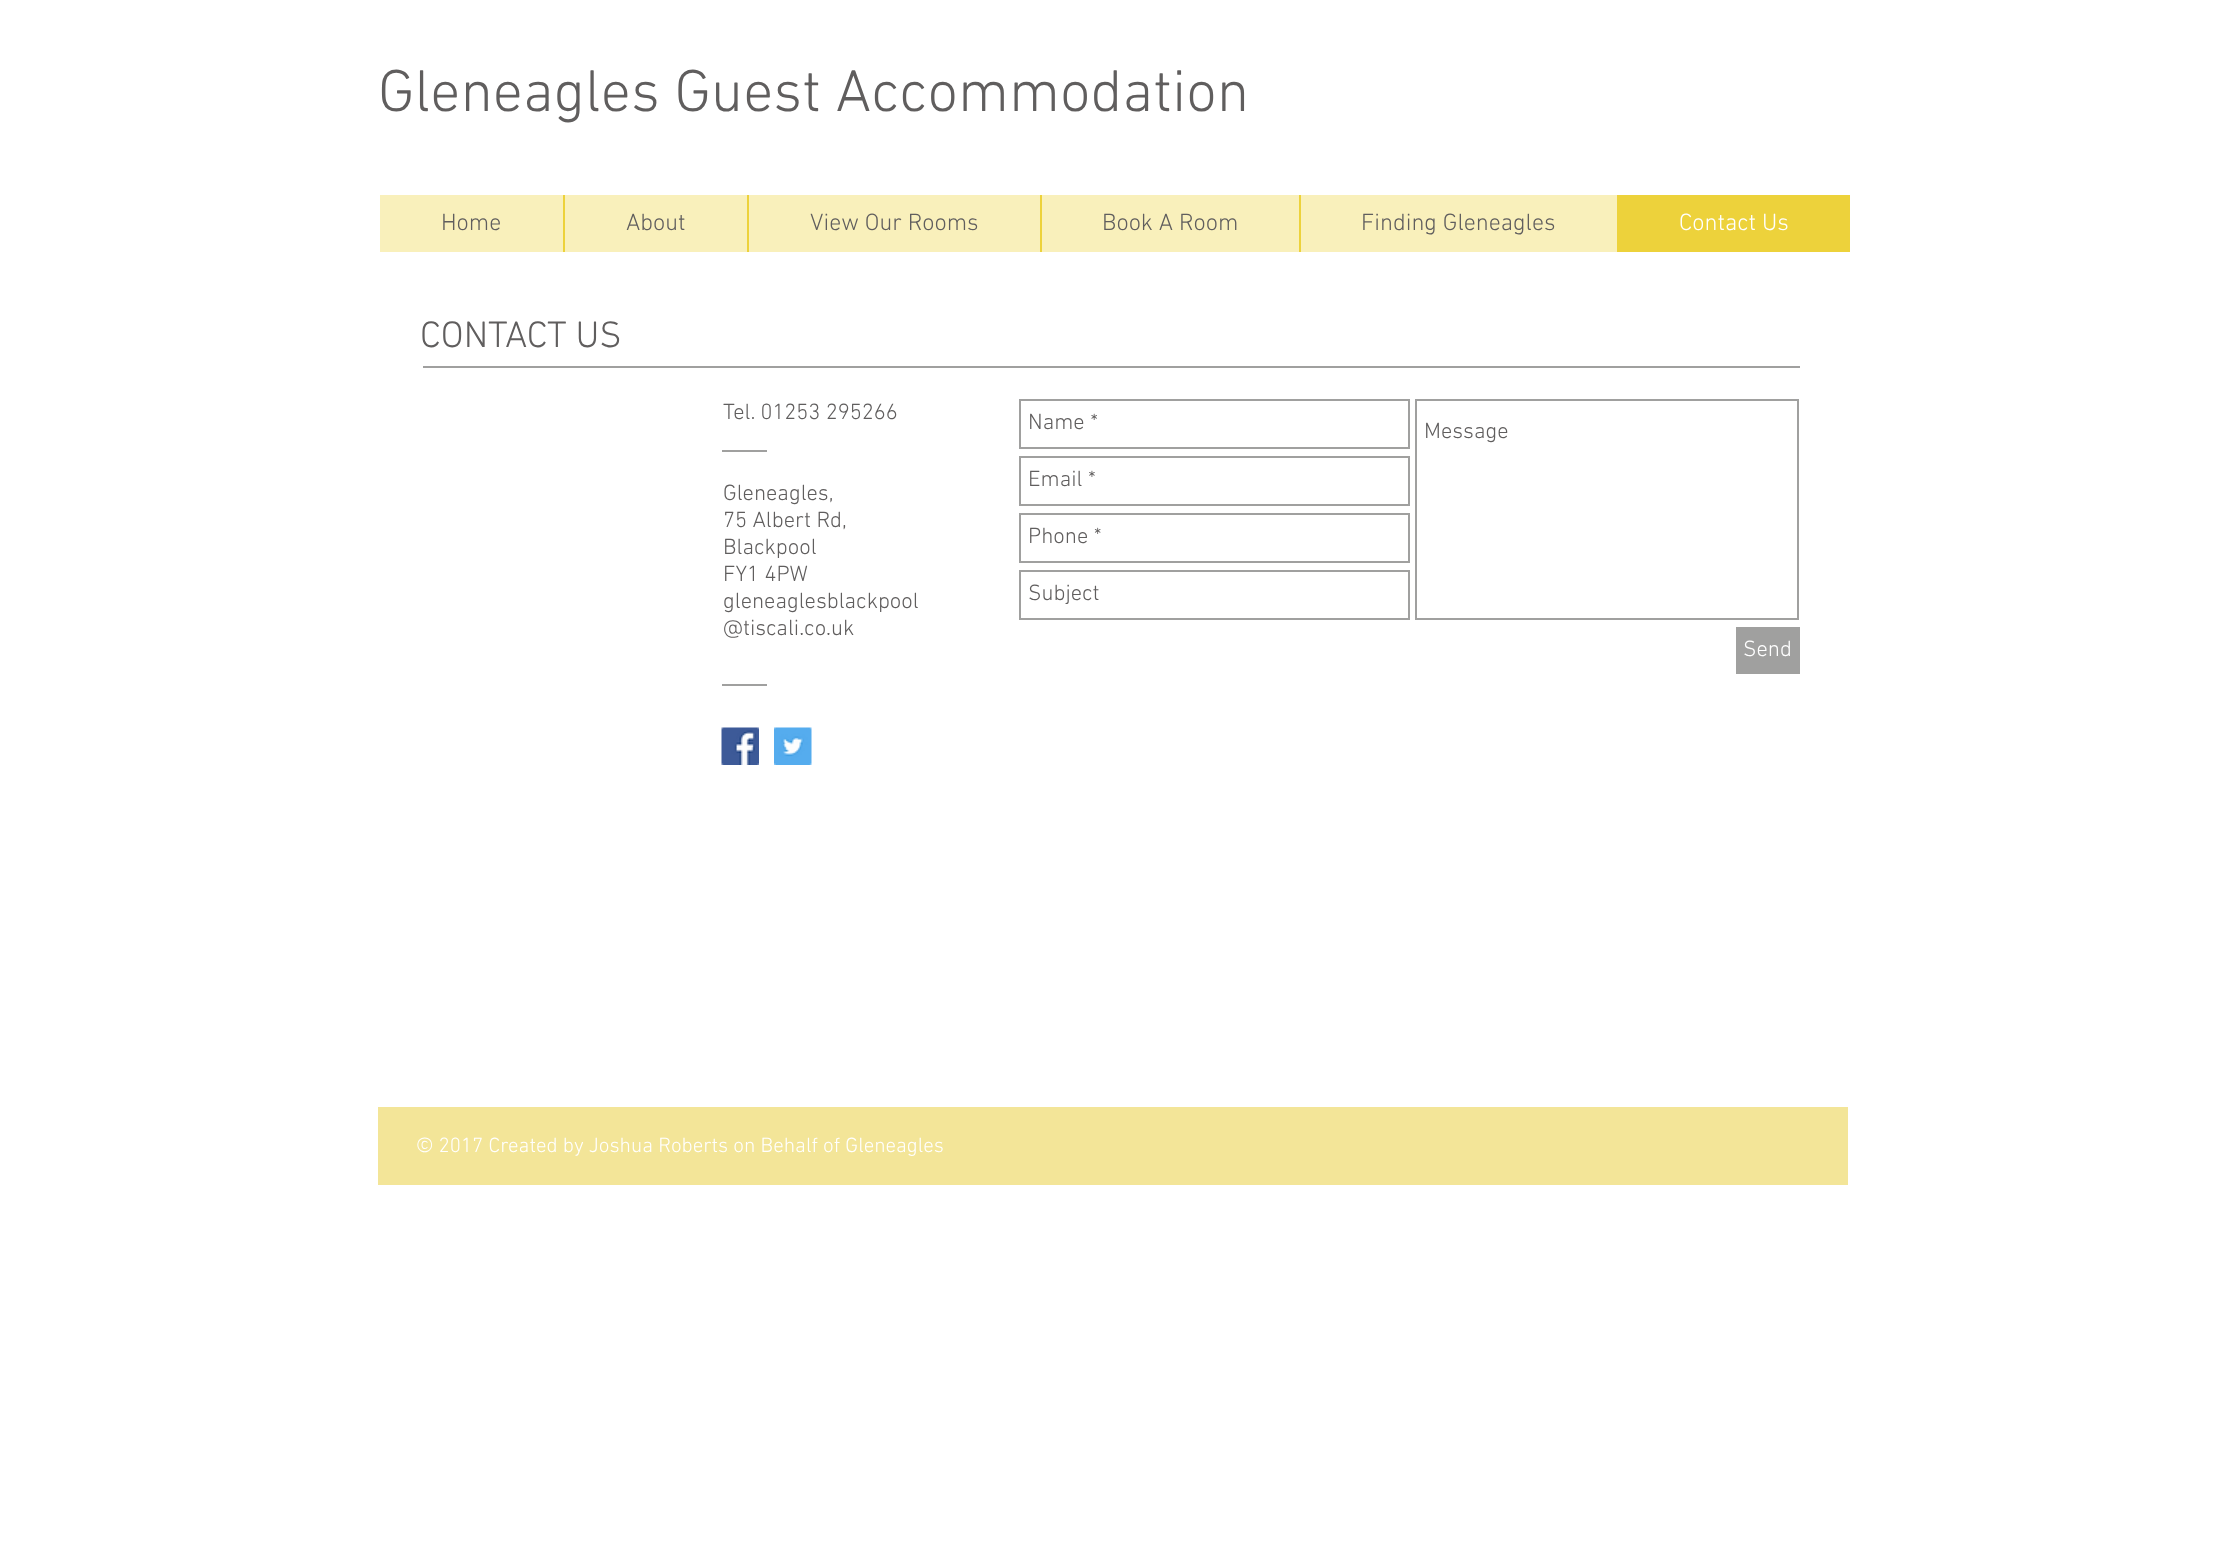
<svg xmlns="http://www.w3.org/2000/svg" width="2225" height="1541">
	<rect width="100%" height="100%" fill="#FFFFFF" />
	<text x="378" y="111" font-family="'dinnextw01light'" font-size="60" font-weight="300" fill="#605E5E">Gleneagles Guest Accommodation</text>
	<rect x="380" y="195" width="1237" height="57" fill="#F9F0BB" />
	<text x="441" y="230" font-family="'dinnextw01light'" font-size="24" font-weight="300" fill="#605E5E">Home</text>
	<rect x="563" y="195" width="2" height="57" fill="#EDD23B" />
	<text x="626" y="230" font-family="'dinnextw01light'" font-size="24" font-weight="300" fill="#605E5E">About</text>
	<rect x="747" y="195" width="2" height="57" fill="#EDD23B" />
	<text x="810" y="230" font-family="'dinnextw01light'" font-size="24" font-weight="300" fill="#605E5E">View Our Rooms</text>
	<rect x="1040" y="195" width="2" height="57" fill="#EDD23B" />
	<text x="1102" y="230" font-family="'dinnextw01light'" font-size="24" font-weight="300" fill="#605E5E">Book A Room</text>
	<rect x="1299" y="195" width="2" height="57" fill="#EDD23B" />
	<text x="1361" y="230" font-family="'dinnextw01light'" font-size="24" font-weight="300" fill="#605E5E">Finding Gleneagles</text>
	<rect x="1617" y="195" width="233" height="57" fill="#EDD23B" />
	<text x="1679" y="230" font-family="'dinnextw01light'" font-size="24" font-weight="300" fill="#FFFFFF">Contact Us</text>
	<text x="420" y="347" font-family="'dinnextw01light'" font-size="37.5" font-weight="300" fill="#605E5E">CONTACT US</text>
	<rect x="423" y="366" width="1377" height="2" fill="#A0A09F" />
	<text x="723" y="419" font-family="'dinnextw01light'" font-size="22.5" font-weight="300" fill="#605E5E">Tel. 01253 295266</text>
	<rect x="1020" y="400" width="389" height="48" fill="none" stroke="#A0A09F" stroke-width="2" />
	<text x="1028" y="429" font-family="'dinnextw01light'" font-size="22.5" font-weight="300" fill="#605E5E">Name *</text>
	<rect x="1416" y="400" width="382" height="219" fill="none" stroke="#A0A09F" stroke-width="2" />
	<text x="1424" y="438" font-family="'dinnextw01light'" font-size="22.5" font-weight="300" fill="#605E5E">Message</text>
	<rect x="1020" y="457" width="389" height="48" fill="none" stroke="#A0A09F" stroke-width="2" />
	<text x="1028" y="486" font-family="'dinnextw01light'" font-size="22.5" font-weight="300" fill="#605E5E">Email *</text>
	<rect x="1020" y="514" width="389" height="48" fill="none" stroke="#A0A09F" stroke-width="2" />
	<text x="1028" y="543" font-family="'dinnextw01light'" font-size="22.5" font-weight="300" fill="#605E5E">Phone *</text>
	<rect x="1020" y="571" width="389" height="48" fill="none" stroke="#A0A09F" stroke-width="2" />
	<text x="1028" y="600" font-family="'dinnextw01light'" font-size="22.5" font-weight="300" fill="#605E5E">Subject</text>
	<rect x="1736" y="627" width="64" height="47" fill="#A0A09F" />
	<text x="1743" y="656" font-family="'dinnextw01light'" font-size="22.5" font-weight="300" fill="#FFFFFF">Send</text>
	<rect x="722" y="450" width="45" height="2" fill="#A0A09F" />
	<g font-family="'dinnextw01light'" font-size="22.5" font-weight="300" fill="#605E5E">
		<text x="723" y="500">Gleneagles,</text>
		<text x="723" y="527">75 Albert Rd,</text>
		<text x="723" y="554">Blackpool</text>
		<text x="723" y="581">FY1 4PW</text>
		<text x="723" y="608">gleneaglesblackpool</text>
		<text x="723" y="635">@tiscali.co.uk</text>
	</g>
	<rect x="722" y="684" width="45" height="2" fill="#A0A09F" />
	<image x="721" y="727" width="38" height="38" href="assets/img1.png" />
	<image x="774" y="727" width="38" height="38" href="assets/img2.png" />
	<rect x="378" y="1107" width="1470" height="78" fill="#F3E598" />
	<text x="416" y="1152" font-family="'dinnextw01light'" font-size="21" font-weight="300" fill="#FFFFFF">© 2017 Created by Joshua Roberts on Behalf of Gleneagles</text>
</svg>
